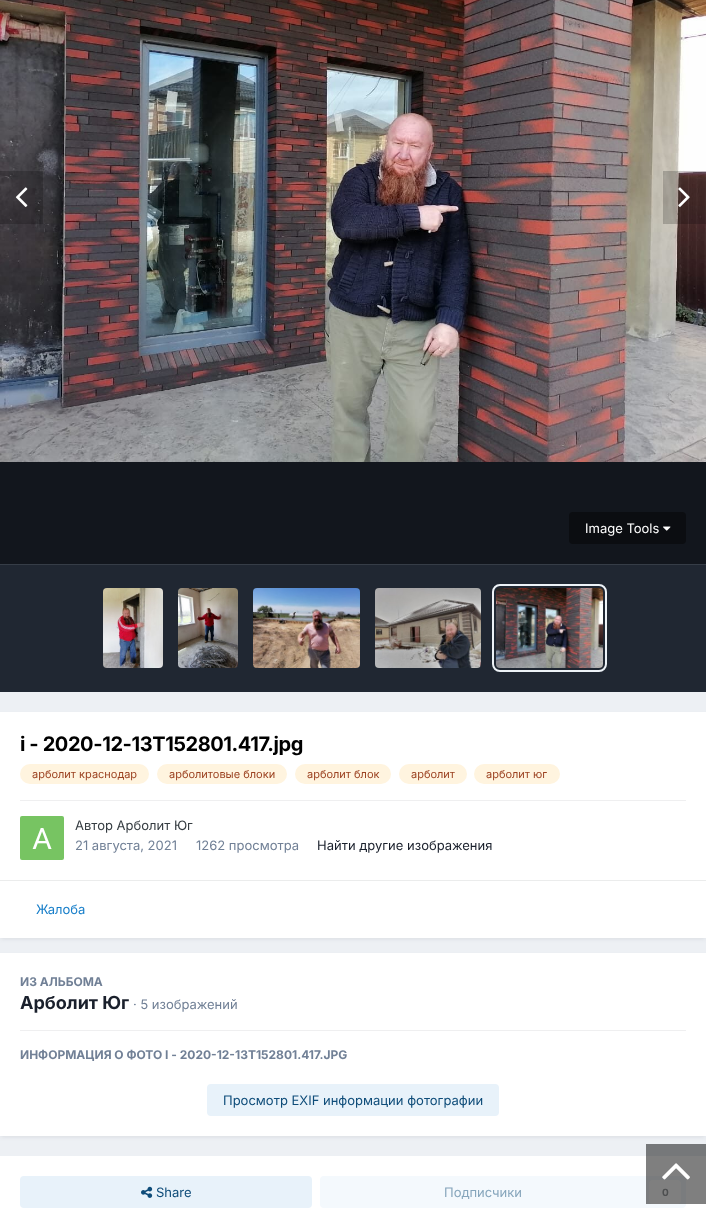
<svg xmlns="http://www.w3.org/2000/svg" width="706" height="1224">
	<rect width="100%" height="100%" fill="#EDF0F4" />
	<rect x="0" y="462" width="706" height="102" fill="#12161D" />
	<image x="0" y="0" width="706" height="462" href="assets/img1.png" />
	<rect x="0" y="171" width="43" height="53" fill="#000000" fill-opacity="0.2" />
	<image x="15" y="187" width="13" height="20" href="assets/img2.png" />
	<rect x="663" y="171" width="43" height="53" fill="#000000" fill-opacity="0.2" />
	<image x="678" y="187" width="12" height="20" href="assets/img3.png" />
	<rect x="569" y="512" width="117" height="32" rx="4" fill="#0B0D11" />
	<text x="585" y="533" font-family="Inter" font-size="13" fill="#FFFFFF">Image Tools</text>
	<image x="663" y="526" width="8" height="5" href="assets/img4.png" />
	<rect x="0" y="565" width="706" height="127" fill="#202732" />
	<rect x="0" y="564" width="706" height="1" fill="#363D47" />
	<image x="103" y="588" width="60" height="80" href="assets/img5.png" />
	<image x="178" y="588" width="60" height="80" href="assets/img6.png" />
	<image x="253" y="588" width="107" height="80" href="assets/img7.png" />
	<image x="375" y="588" width="106" height="80" href="assets/img8.png" />
	<rect x="493" y="585" width="113" height="86" rx="7" fill="none" stroke="#EDF2F7" stroke-width="2" />
	<image x="496" y="588" width="107" height="80" href="assets/img9.png" />
	<rect x="1" y="715" width="704" height="224" fill="#2D3748" fill-opacity="0.1" filter="blur(2px)" />
	<rect x="0" y="712" width="706" height="226" fill="#FFFFFF" />
	<text x="20" y="751" font-family="Inter" font-size="20" font-weight="700" letter-spacing="-0.4" fill="#000000">i - 2020-12-13T152801.417.jpg</text>
	<rect x="20" y="764" width="129" height="20" rx="10" fill="#FFF4DF" />
	<text x="32" y="778" font-family="Inter" font-size="11" fill="#9C4221">арболит краснодар</text>
	<rect x="157" y="764" width="130" height="20" rx="10" fill="#FFF4DF" />
	<text x="169" y="778" font-family="Inter" font-size="11" fill="#9C4221">арболитовые блоки</text>
	<rect x="295" y="764" width="96" height="20" rx="10" fill="#FFF4DF" />
	<text x="307" y="778" font-family="Inter" font-size="11" fill="#9C4221">арболит блок</text>
	<rect x="399" y="764" width="68" height="20" rx="10" fill="#FFF4DF" />
	<text x="411" y="778" font-family="Inter" font-size="11" fill="#9C4221">арболит</text>
	<rect x="474" y="764" width="86" height="20" rx="10" fill="#FFF4DF" />
	<text x="486" y="778" font-family="Inter" font-size="11" fill="#9C4221">арболит юг</text>
	<rect x="20" y="800" width="666" height="1" fill="#EFEFF0" />
	<image x="20" y="816" width="44" height="44" href="assets/img10.png" />
	<text x="75" y="830" font-family="Inter" font-size="13" fill="#353C41">Автор Арболит Юг</text>
	<g font-family="Inter" font-size="13" fill="#718096">
		<text x="75" y="850">21 августа, 2021</text>
		<text x="196" y="850">1262 просмотра</text>
	</g>
	<text x="317" y="850" font-family="Inter" font-size="13" fill="#1A202C">Найти другие изображения</text>
	<rect x="0" y="880" width="706" height="1" fill="#EBECEC" />
	<text x="36" y="914" font-family="Inter" font-size="13" fill="#177EC9">Жалоба</text>
	<rect x="1" y="956" width="704" height="181" fill="#2D3748" fill-opacity="0.1" filter="blur(2px)" />
	<rect x="0" y="953" width="706" height="183" fill="#FFFFFF" />
	<text x="20" y="986" font-family="Inter" font-size="12" font-weight="700" fill="#718096">ИЗ АЛЬБОМА</text>
	<text x="20" y="1009" font-family="Inter" font-size="18" font-weight="700" fill="#1A202C">Арболит Юг</text>
	<text x="133" y="1009" font-family="Inter" font-size="13" fill="#718096">· 5 изображений</text>
	<rect x="20" y="1030" width="666" height="1" fill="#EFEFF0" />
	<text x="20" y="1059" font-family="Inter" font-size="12" font-weight="700" fill="#718096">ИНФОРМАЦИЯ О ФОТО I - 2020-12-13T152801.417.JPG</text>
	<rect x="207" y="1084" width="292" height="32" rx="4" fill="#E8F2FA" />
	<text x="223" y="1105" font-family="Inter" font-size="13" fill="#0E4C79">Просмотр EXIF информации фотографии</text>
	<rect x="0" y="1156" width="706" height="68" fill="#FFFFFF" />
	<rect x="20" y="1176" width="292" height="32" rx="4" fill="#E8F2FA" />
	<image x="141" y="1186" width="12" height="12" href="assets/img11.png" />
	<text x="156" y="1197" font-family="Inter" font-size="13" fill="#0E4C79">Share</text>
	<rect x="320" y="1176" width="366" height="32" rx="4" fill="#F4F9FD" />
	<text x="444" y="1197" font-family="Inter" font-size="13" fill="#87A6BC">Подписчики</text>
	<rect x="649" y="1180" width="32" height="24" rx="4" fill="#FFFFFF" />
	<text x="662" y="1196" font-family="Inter" font-size="10" font-weight="700" fill="#9A9EA0">0</text>
	<rect x="646" y="1144" width="60" height="60" fill="#000000" fill-opacity="0.5" />
	<image x="662" y="1163" width="28" height="17" href="assets/img12.png" />
</svg>
